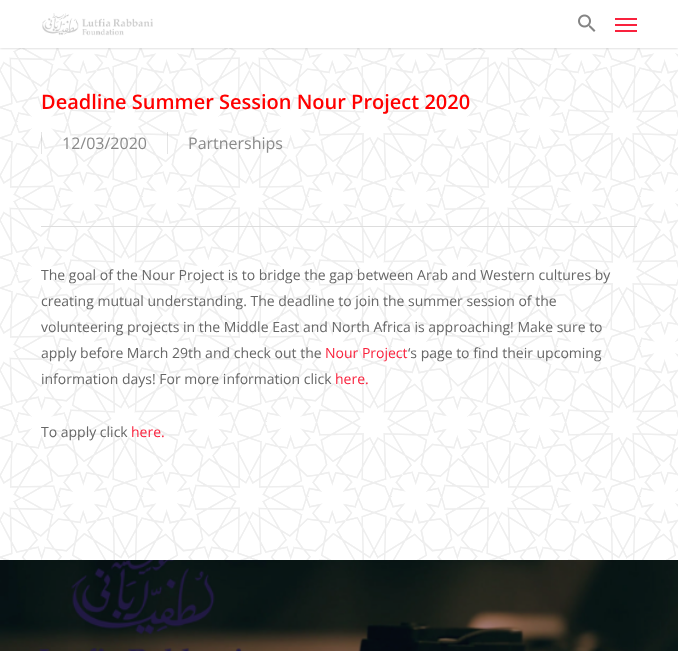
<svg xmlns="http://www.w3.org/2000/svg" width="678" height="651">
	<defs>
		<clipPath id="clip1"><rect x="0" y="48" width="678" height="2" /></clipPath>
	</defs>
	<rect width="100%" height="100%" fill="#FFFFFF" />
	<image x="0" y="48" width="678" height="512" href="assets/img3.png" />
	<g clip-path="url(#clip1)">
		<rect x="0" y="0" width="678" height="48" fill="#000000" fill-opacity="0.22" filter="blur(1.5px)" />
	</g>
	<image x="42" y="13" width="111" height="23" href="assets/img1.png" />
	<image x="578" y="14" width="18" height="18" href="assets/img2.png" />
	<rect x="615" y="18" width="22" height="2" fill="#F9223D" />
	<rect x="615" y="30" width="22" height="2" fill="#F9223D" />
	<rect x="615" y="24" width="22" height="2" fill="#F9223D" />
	<rect x="41" y="226" width="596" height="1" fill="#DDDDDD" />
	<text x="41" y="109" font-family="Open Sans" font-size="20" font-weight="600" fill="#FF0000">Deadline Summer Session Nour Project 2020</text>
	<text x="62" y="149" font-family="Open Sans" font-size="16" fill="#8A8A8A">12/03/2020</text>
	<rect x="41" y="132" width="1" height="22" fill="#000000" fill-opacity="0.1" />
	<text x="188" y="149" font-family="Open Sans" font-size="16" fill="#8A8A8A">Partnerships</text>
	<rect x="167" y="132" width="1" height="22" fill="#000000" fill-opacity="0.1" />
	<g font-family="Open Sans" font-size="14" fill="#676767">
		<text x="41" y="280">The goal of the Nour Project is to bridge the gap between Arab and Western cultures by</text>
		<text x="41" y="306">creating mutual understanding. The deadline to join the summer session of the</text>
		<text x="41" y="332">volunteering projects in the Middle East and North Africa is approaching! Make sure to</text>
		<text x="41" y="358">apply before March 29th and check out the</text>
	</g>
	<text x="325" y="358" font-family="Open Sans" font-size="14" fill="#F9223D">Nour Project</text>
	<g font-family="Open Sans" font-size="14" fill="#676767">
		<text x="408" y="358">‘s page to find their upcoming</text>
		<text x="41" y="384">information days! For more information click</text>
	</g>
	<text x="335" y="384" font-family="Open Sans" font-size="14" fill="#F9223D">here.</text>
	<text x="41" y="437" font-family="Open Sans" font-size="14" fill="#676767">To apply click</text>
	<text x="131" y="437" font-family="Open Sans" font-size="14" fill="#F9223D">here.</text>
	<image x="0" y="560" width="678" height="91" href="assets/img4.png" />
</svg>
